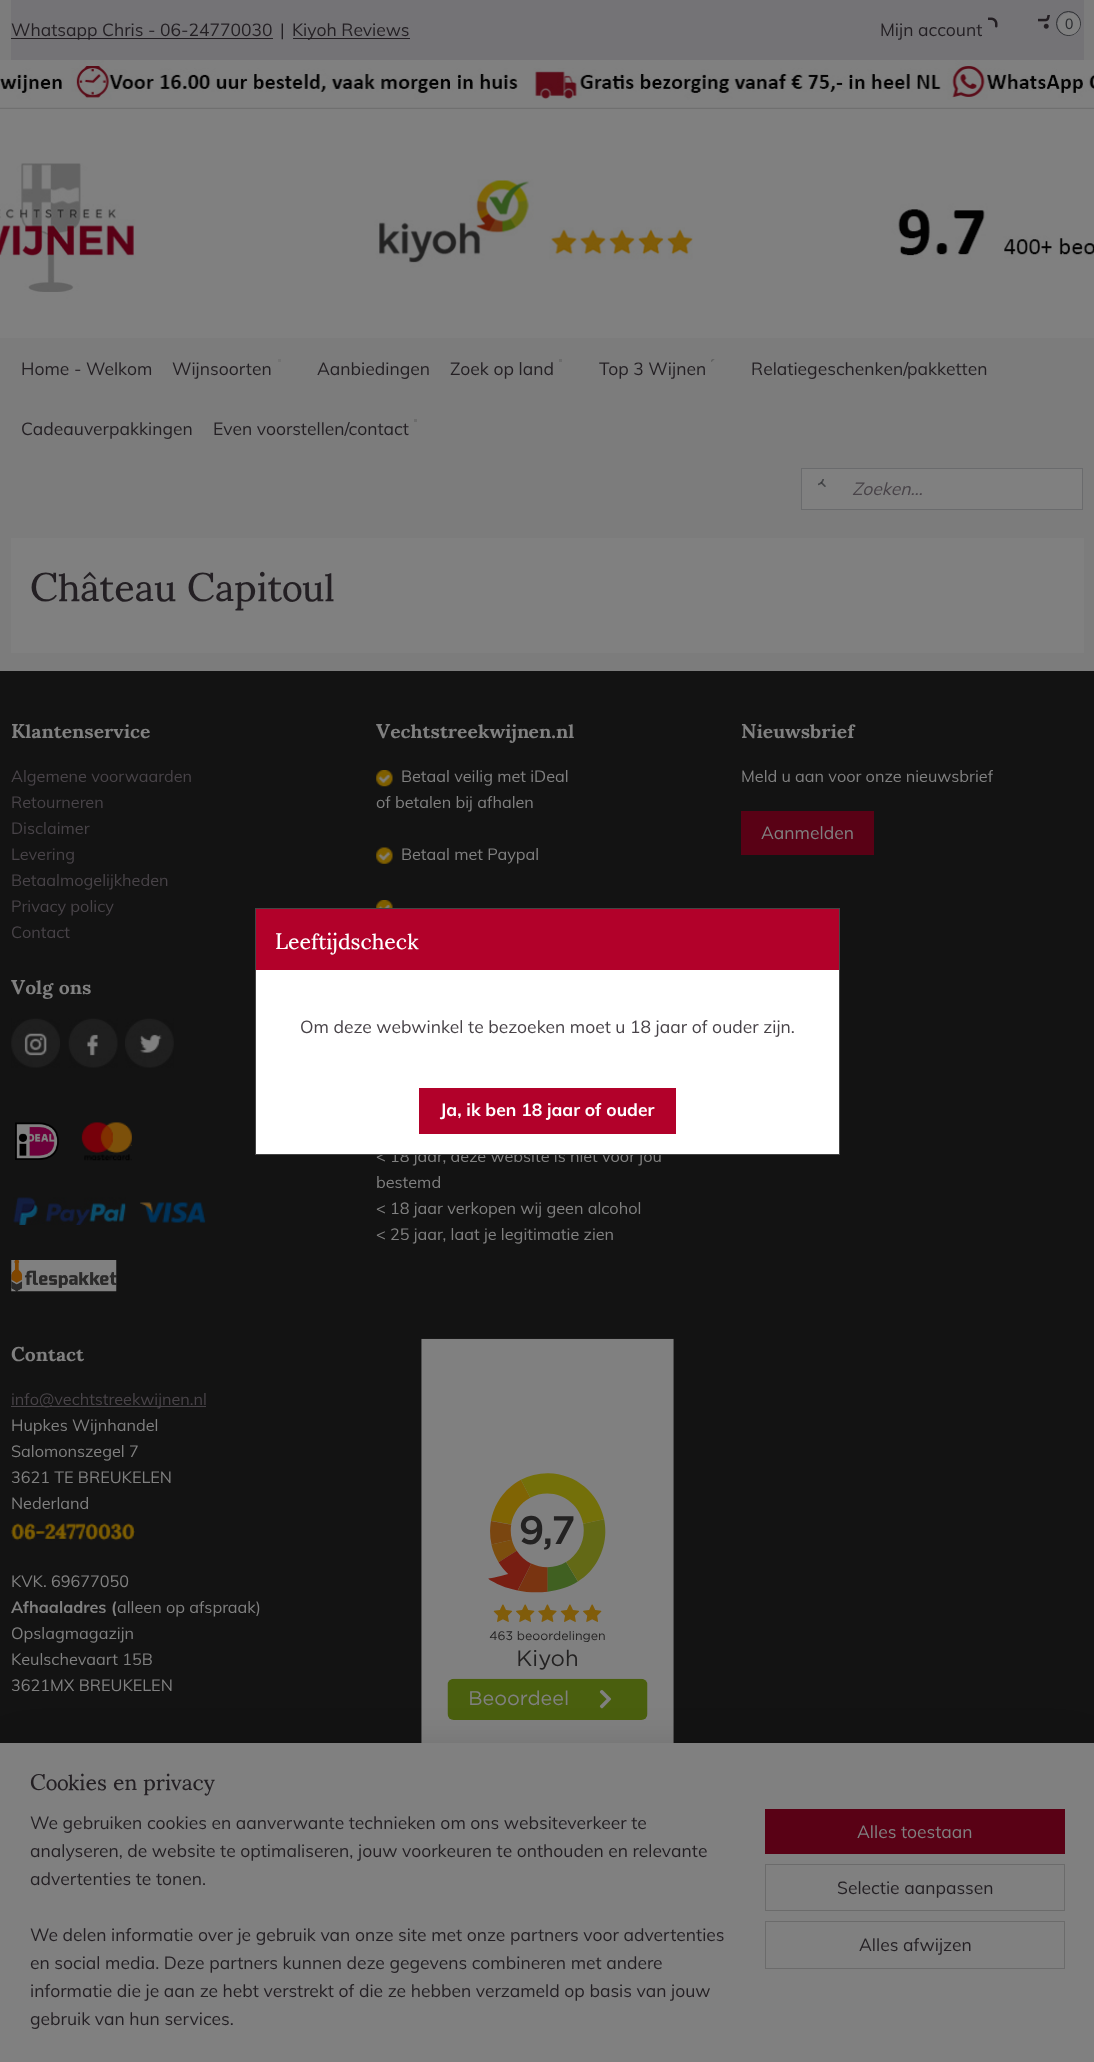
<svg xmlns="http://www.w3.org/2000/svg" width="1094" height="2062">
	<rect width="100%" height="100%" fill="#7C7C7C" />
	<rect x="11" y="0" width="1073" height="60" fill="#747376" />
	<rect x="11" y="38" width="262" height="1" fill="#231F23" />
	<g font-family="Muli" font-size="17.5" fill="#231F23">
		<text x="11" y="36">Whatsapp Chris - 06-24770030</text>
		<text x="280" y="36">|</text>
	</g>
	<rect x="293" y="38" width="117" height="1" fill="#231F23" />
	<g font-family="Muli" font-size="17.5" fill="#231F23">
		<text x="292" y="36">Kiyoh Reviews</text>
		<text x="880" y="36">Mijn account</text>
	</g>
	<image x="988" y="17" width="10" height="11" href="assets/img1.png" />
	<image x="1038" y="15" width="12" height="14" href="assets/img2.png" />
	<circle cx="1068.5" cy="23.5" r="12" fill="none" stroke="#2C2E31" />
	<circle cx="1069" cy="24" r="11" fill="#808080" />
	<text x="1065" y="29" font-family="Liberation Sans" font-size="15" fill="#2C2E31">0</text>
	<image x="0" y="60" width="1094" height="278" href="assets/img3.png" />
	<text x="21" y="375" font-family="Muli" font-size="17.5" fill="#231F23">Home - Welkom</text>
	<rect x="278" y="359" width="3" height="3" fill="#727272" />
	<g font-family="Muli" font-size="17.5" fill="#231F23">
		<text x="172" y="375">Wijnsoorten</text>
		<text x="317" y="375">Aanbiedingen</text>
	</g>
	<rect x="559" y="359" width="3" height="3" fill="#6C6C6C" />
	<text x="450" y="375" font-family="Muli" font-size="17.5" fill="#231F23">Zoek op land</text>
	<image x="711" y="359" width="4" height="3" href="assets/img4.png" />
	<g font-family="Muli" font-size="17.5" fill="#231F23">
		<text x="599" y="375">Top 3 Wijnen</text>
		<text x="751" y="375">Relatiegeschenken/pakketten</text>
		<text x="21" y="435">Cadeauverpakkingen</text>
	</g>
	<rect x="414" y="419" width="3" height="3" fill="#6C6C6C" />
	<text x="213" y="435" font-family="Muli" font-size="17.5" fill="#231F23">Even voorstellen/contact</text>
	<rect x="801.5" y="468.5" width="281" height="41" fill="#808080" stroke="#6A6B6D" />
	<image x="818" y="479" width="8" height="8" href="assets/img5.png" />
	<text x="852" y="495" font-family="Muli" font-size="17.5" font-style="italic" fill="#484348">Zoeken...</text>
	<rect x="11" y="538" width="1073" height="115" fill="#808080" />
	<text x="30" y="601" font-family="Sumana" font-size="40" fill="#231F23">Château Capitoul</text>
	<rect x="0" y="671" width="1094" height="1072" fill="#131313" />
	<text x="11" y="738" font-family="Sumana" font-size="20" font-weight="700" fill="#808080">Klantenservice</text>
	<g font-family="Muli" font-size="16.25" fill="#484348">
		<text x="11" y="782">Algemene voorwaarden</text>
		<text x="11" y="808">Retourneren</text>
		<text x="11" y="834">Disclaimer</text>
		<text x="11" y="860">Levering</text>
		<text x="11" y="886">Betaalmogelijkheden</text>
		<text x="11" y="912">Privacy policy</text>
		<text x="11" y="938">Contact</text>
	</g>
	<text x="11" y="994" font-family="Sumana" font-size="20" font-weight="700" fill="#808080">Volg ons</text>
	<image x="11" y="1018" width="49" height="50" href="assets/img6.png" />
	<image x="68" y="1018" width="50" height="50" href="assets/img7.png" />
	<image x="125" y="1018" width="49" height="50" href="assets/img8.png" />
	<image x="15" y="1122" width="44" height="38" href="assets/img9.png" />
	<image x="81" y="1122" width="51" height="39" href="assets/img10.png" />
	<image x="13" y="1197" width="113" height="28" href="assets/img11.png" />
	<image x="140" y="1202" width="66" height="21" href="assets/img12.png" />
	<image x="11" y="1260" width="106" height="32" href="assets/img13.png" />
	<text x="376" y="738" font-family="Sumana" font-size="20" font-weight="700" fill="#808080">Vechtstreekwijnen.nl</text>
	<image x="376" y="770" width="17" height="17" href="assets/img14.png" />
	<g font-family="Muli" font-size="16.25" fill="#808080">
		<text x="401" y="782">Betaal veilig met iDeal</text>
		<text x="376" y="808">of betalen bij afhalen</text>
	</g>
	<image x="376" y="847" width="17" height="17" href="assets/img15.png" />
	<text x="401" y="860" font-family="Muli" font-size="16.25" fill="#808080">Betaal met Paypal</text>
	<image x="376" y="900" width="17" height="8" href="assets/img16.png" />
	<g font-family="Muli" font-size="16.25" fill="#808080">
		<text x="376" y="1162">&lt; 18 jaar, deze website is niet voor jou</text>
		<text x="376" y="1188">bestemd</text>
		<text x="376" y="1214">&lt; 18 jaar verkopen wij geen alcohol</text>
		<text x="376" y="1240">&lt; 25 jaar, laat je legitimatie zien</text>
	</g>
	<text x="741" y="738" font-family="Sumana" font-size="20" font-weight="700" fill="#808080">Nieuwsbrief</text>
	<text x="741" y="782" font-family="Muli" font-size="16.25" fill="#808080">Meld u aan voor onze nieuwsbrief</text>
	<rect x="741" y="811" width="133" height="44" fill="#590115" />
	<text x="761" y="839" font-family="Muli" font-size="17.5" fill="#808080">Aanmelden</text>
	<text x="11" y="1361" font-family="Sumana" font-size="20" font-weight="700" fill="#808080">Contact</text>
	<rect x="11" y="1406" width="195" height="1" fill="#484348" />
	<text x="11" y="1405" font-family="Muli" font-size="16.25" fill="#484348">info@vechtstreekwijnen.nl</text>
	<g font-family="Muli" font-size="16.25" fill="#808080">
		<text x="11" y="1431">Hupkes Wijnhandel</text>
		<text x="11" y="1457">Salomonszegel 7</text>
		<text x="11" y="1483">3621 TE BREUKELEN</text>
		<text x="11" y="1509">Nederland</text>
	</g>
	<image x="11" y="1523" width="124" height="18" href="assets/img17.png" />
	<text x="11" y="1587" font-family="Muli" font-size="16.25" fill="#808080">KVK. 69677050</text>
	<text x="11" y="1613" font-family="Muli" font-size="16.25" font-weight="700" fill="#808080">Afhaaladres (</text>
	<g font-family="Muli" font-size="16.25" fill="#808080">
		<text x="117" y="1613">alleen op afspraak)</text>
		<text x="11" y="1639">Opslagmagazijn</text>
		<text x="11" y="1665">Keulschevaart 15B</text>
		<text x="11" y="1691">3621MX BREUKELEN</text>
	</g>
	<image x="421" y="1338" width="253" height="405" href="assets/img18.png" />
	<rect x="256" y="970" width="583" height="184" fill="#FFFFFF" />
	<rect x="255.5" y="908.5" width="584" height="246" fill="none" stroke="#444444" />
	<rect x="256" y="909" width="583" height="61" fill="#B2012A" />
	<text x="275" y="949" font-family="Sumana" font-size="22.5" fill="#FFFFFF">Leeftijdscheck</text>
	<text x="300" y="1033" font-family="Muli" font-size="17.5" fill="#484348">Om deze webwinkel te bezoeken moet u 18 jaar of ouder zijn.</text>
	<rect x="419" y="1088" width="257" height="46" fill="#B2012A" />
	<text x="440" y="1116" font-family="Muli" font-size="17.5" font-weight="700" fill="#FFFFFF">Ja, ik ben 18 jaar of ouder</text>
	<rect x="13" y="1755" width="1070" height="295" fill="#000000" fill-opacity="0.2" filter="blur(22.5px)" />
	<rect x="0" y="1743" width="1094" height="319" fill="#808080" />
	<text x="30" y="1790" font-family="Sumana" font-size="22.5" fill="#231F23">Cookies en privacy</text>
	<g font-family="Muli" font-size="17.5" fill="#231F23">
		<text x="30" y="1829">We gebruiken cookies en aanverwante technieken om ons websiteverkeer te</text>
		<text x="30" y="1857">analyseren, de website te optimaliseren, jouw voorkeuren te onthouden en relevante</text>
		<text x="30" y="1885">advertenties te tonen.</text>
		<text x="30" y="1941">We delen informatie over je gebruik van onze site met onze partners voor advertenties</text>
		<text x="30" y="1969">en social media. Deze partners kunnen deze gegevens combineren met andere</text>
		<text x="30" y="1997">informatie die je aan ze hebt verstrekt of die ze hebben verzameld op basis van jouw</text>
		<text x="30" y="2025">gebruik van hun services.</text>
	</g>
	<rect x="765" y="1809" width="300" height="45" fill="#590115" />
	<text x="857" y="1838" font-family="Muli" font-size="17.5" fill="#808080">Alles toestaan</text>
	<rect x="765.5" y="1864.5" width="299" height="46" fill="none" stroke="#6B6B6B" />
	<text x="837" y="1894" font-family="Muli" font-size="17.5" fill="#231F23">Selectie aanpassen</text>
	<rect x="765.5" y="1921.5" width="299" height="47" fill="none" stroke="#6B6B6B" />
	<text x="859" y="1951" font-family="Muli" font-size="17.5" fill="#231F23">Alles afwijzen</text>
</svg>
